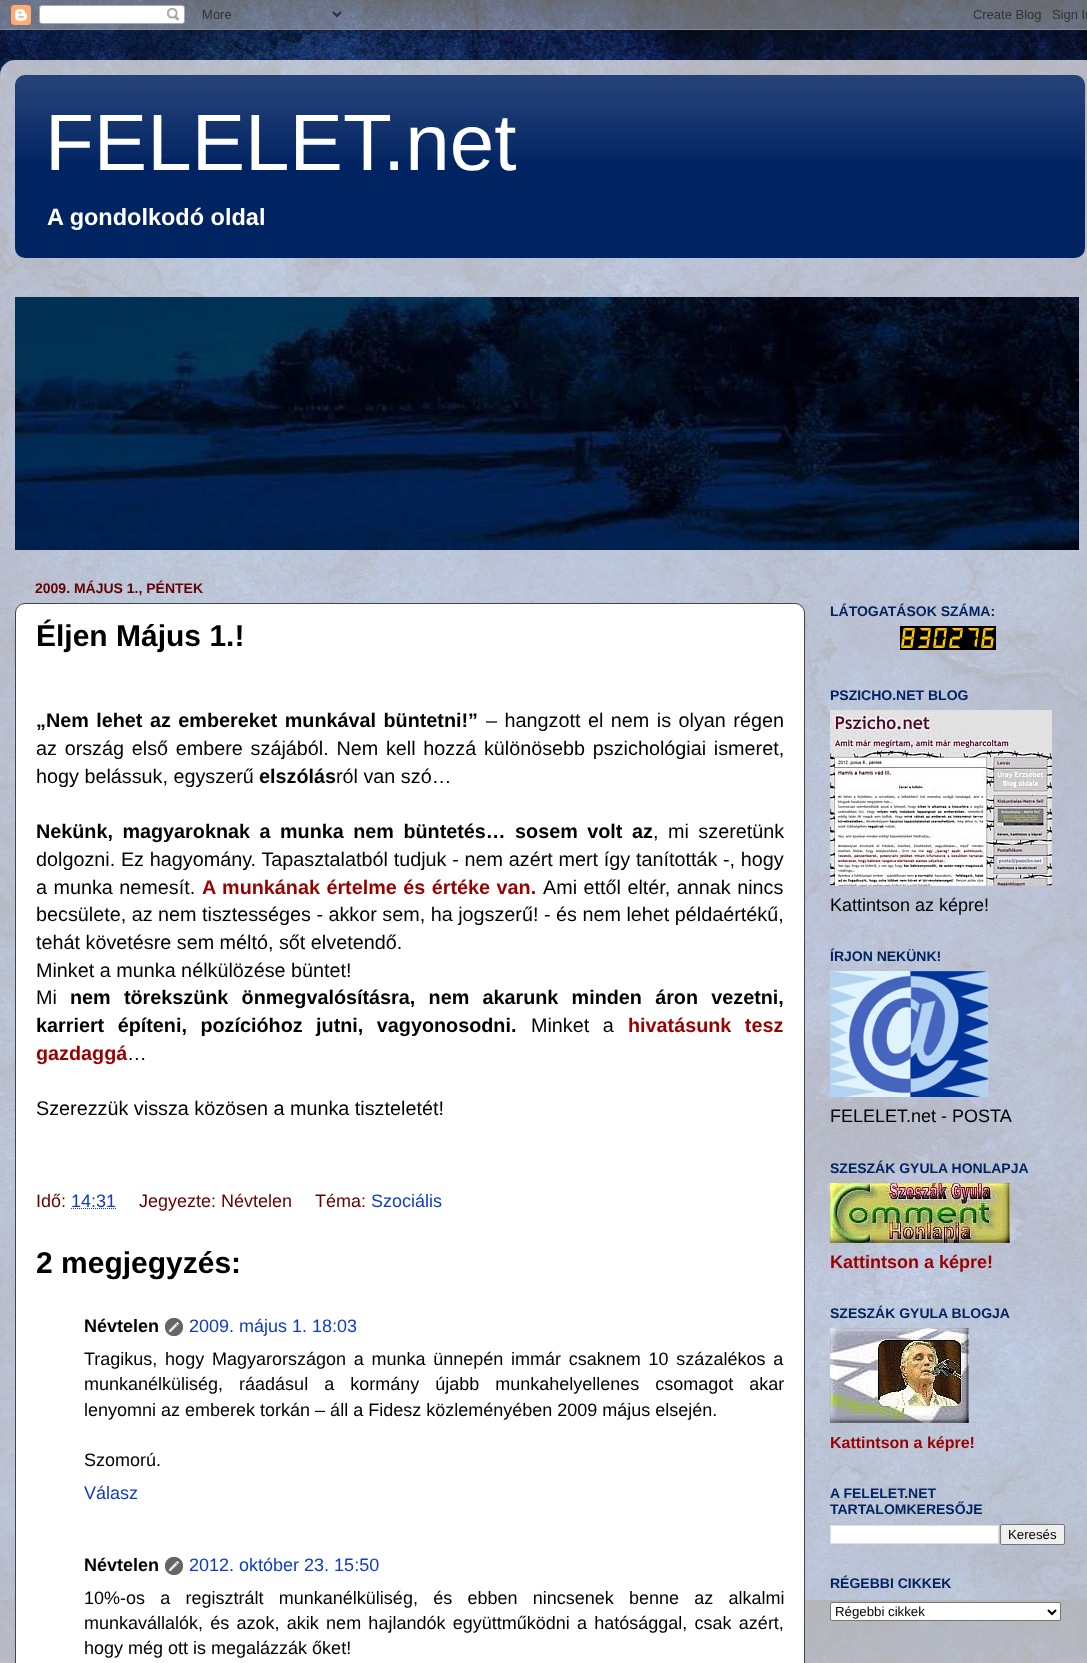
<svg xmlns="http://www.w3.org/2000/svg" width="1087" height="1663">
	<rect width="100%" height="100%" fill="#FFFFFF" />
	<image x="0" y="0" width="1087" height="1663" href="assets/img1.png" />
	<image x="0" y="0" width="1087" height="30" href="assets/img2.png" />
	<image x="0" y="60" width="1087" height="1603" href="assets/img3.png" />
	<rect x="15" y="75" width="1070" height="183" rx="10" fill="#002362" />
	<image x="15" y="75" width="1070" height="84" href="assets/img4.png" />
	<text x="45" y="170" font-family="Liberation Sans" font-size="80" fill="#FFFFFF">FELELET.net</text>
	<text x="47" y="225" font-family="Liberation Sans" font-size="23.5" font-weight="700" fill="#FFFFFF">A gondolkodó oldal</text>
	<image x="15" y="297" width="1064" height="253" href="assets/img5.png" />
	<text x="35" y="593" font-family="Liberation Sans" font-size="14" font-weight="700" fill="#660000">2009. MÁJUS 1., PÉNTEK</text>
	<rect x="15.5" y="603.5" width="789" height="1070" rx="9.5" fill="#FFFFFF" stroke="#444444" />
	<text x="36" y="646" font-family="Liberation Sans" font-size="30" font-weight="700" fill="#000000">Éljen Május 1.!</text>
	<text x="36" y="727" word-spacing="2" font-family="Liberation Sans" font-size="19.8" font-weight="700" fill="#000000">„Nem lehet az embereket munkával büntetni!”</text>
	<g font-family="Liberation Sans" font-size="19.8" fill="#000000">
		<text x="486" y="727" word-spacing="2">– hangzott el nem is olyan régen</text>
		<text x="36" y="755" word-spacing="2.25">az ország első embere szájából. Nem kell hozzá különösebb pszichológiai ismeret,</text>
		<text x="36" y="783">hogy belássuk, egyszerű</text>
	</g>
	<text x="259" y="783" font-family="Liberation Sans" font-size="19.8" font-weight="700" fill="#000000">elszólás</text>
	<text x="336" y="783" font-family="Liberation Sans" font-size="19.8" fill="#000000">ról van szó…</text>
	<text x="36" y="838" word-spacing="4" font-family="Liberation Sans" font-size="19.8" font-weight="700" fill="#000000">Nekünk, magyaroknak a munka nem büntetés… sosem volt az</text>
	<g font-family="Liberation Sans" font-size="19.8" fill="#000000">
		<text x="653" y="838" word-spacing="4">, mi szeretünk</text>
		<text x="36" y="866" word-spacing="0.25">dolgozni. Ez hagyomány. Tapasztalatból tudjuk - nem azért mert így tanították -, hogy</text>
		<text x="36" y="894" word-spacing="1">a munka nemesít.</text>
	</g>
	<text x="202" y="894" word-spacing="1" font-family="Liberation Sans" font-size="19.8" font-weight="700" fill="#990000">A munkának értelme és értéke van.</text>
	<g font-family="Liberation Sans" font-size="19.8" fill="#000000">
		<text x="543" y="894" word-spacing="1">Ami ettől eltér, annak nincs</text>
		<text x="36" y="921">becsülete, az nem tisztességes - akkor sem, ha jogszerű! - és nem lehet példaértékű,</text>
		<text x="36" y="949">tehát követésre sem méltó, sőt elvetendő.</text>
		<text x="36" y="977">Minket a munka nélkülözése büntet!</text>
		<text x="36" y="1004">Mi</text>
	</g>
	<g font-family="Liberation Sans" font-size="19.8" font-weight="700" fill="#000000">
		<text x="70" y="1004" word-spacing="7.75">nem törekszünk önmegvalósításra, nem akarunk minden áron vezetni,</text>
		<text x="36" y="1032" word-spacing="8">karriert építeni, pozícióhoz jutni, vagyonosodni.</text>
	</g>
	<text x="531" y="1032" word-spacing="8" font-family="Liberation Sans" font-size="19.8" fill="#000000">Minket a</text>
	<g font-family="Liberation Sans" font-size="19.8" font-weight="700" fill="#990000">
		<text x="628" y="1032" word-spacing="8">hivatásunk tesz</text>
		<text x="36" y="1060">gazdaggá</text>
	</g>
	<g font-family="Liberation Sans" font-size="19.8" fill="#000000">
		<text x="127" y="1060">…</text>
		<text x="36" y="1115">Szerezzük vissza közösen a munka tiszteletét!</text>
	</g>
	<text x="36" y="1207" font-family="Liberation Sans" font-size="18" fill="#660000">Idő:</text>
	<text x="71" y="1207" font-family="Liberation Sans" font-size="18" fill="#103BC7">14:31</text>
	<path d="M71 1208.5H116" fill="none" stroke="#103BC7" stroke-dasharray="1 1" />
	<g font-family="Liberation Sans" font-size="18" fill="#660000">
		<text x="139" y="1207">Jegyezte: Névtelen</text>
		<text x="315" y="1207">Téma:</text>
	</g>
	<text x="371" y="1207" font-family="Liberation Sans" font-size="18" fill="#103BC7">Szociális</text>
	<text x="36" y="1273" font-family="Liberation Sans" font-size="30" font-weight="700" fill="#000000">2 megjegyzés:</text>
	<text x="84" y="1332" font-family="Liberation Sans" font-size="18" font-weight="700" fill="#000000">Névtelen</text>
	<image x="165" y="1318" width="18" height="18" href="assets/img6.png" />
	<text x="189" y="1332" font-family="Liberation Sans" font-size="18" fill="#103BC7">2009. május 1. 18:03</text>
	<g font-family="Liberation Sans" font-size="18" fill="#000000">
		<text x="84" y="1365" word-spacing="2.75">Tragikus, hogy Magyarországon a munka ünnepén immár csaknem 10 százalékos a</text>
		<text x="84" y="1390" word-spacing="11">munkanélküliség, ráadásul a kormány újabb munkahelyellenes csomagot akar</text>
		<text x="84" y="1416">lenyomni az emberek torkán – áll a Fidesz közleményében 2009 május elsején.</text>
		<text x="84" y="1466">Szomorú.</text>
	</g>
	<text x="84" y="1499" font-family="Liberation Sans" font-size="18" fill="#103BC7">Válasz</text>
	<text x="84" y="1571" font-family="Liberation Sans" font-size="18" font-weight="700" fill="#000000">Névtelen</text>
	<image x="165" y="1557" width="18" height="18" href="assets/img6.png" />
	<text x="189" y="1571" font-family="Liberation Sans" font-size="18" fill="#103BC7">2012. október 23. 15:50</text>
	<g font-family="Liberation Sans" font-size="18" fill="#000000">
		<text x="84" y="1604" word-spacing="10.25">10%-os a regisztrált munkanélküliség, és ebben nincsenek benne az alkalmi</text>
		<text x="84" y="1629" word-spacing="2.25">munkavállalók, és azok, akik nem hajlandók együttműködni a hatósággal, csak azért,</text>
		<text x="84" y="1654">hogy még ott is megalázzák őket!</text>
	</g>
	<text x="830" y="616" font-family="Liberation Sans" font-size="14" font-weight="700" fill="#002362">LÁTOGATÁSOK SZÁMA:</text>
	<image x="900" y="626" width="96" height="24" href="assets/img7.png" />
	<text x="830" y="700" font-family="Liberation Sans" font-size="14" font-weight="700" fill="#002362">PSZICHO.NET BLOG</text>
	<image x="830" y="710" width="222" height="176" href="assets/img8.png" />
	<text x="830" y="911" font-family="Liberation Sans" font-size="18" fill="#000000">Kattintson az képre!</text>
	<text x="830" y="961" font-family="Liberation Sans" font-size="14" font-weight="700" fill="#002362">ÍRJON NEKÜNK!</text>
	<image x="830" y="971" width="158" height="126" href="assets/img9.png" />
	<text x="830" y="1122" font-family="Liberation Sans" font-size="18" fill="#000000">FELELET.net - POSTA</text>
	<text x="830" y="1173" font-family="Liberation Sans" font-size="14" font-weight="700" fill="#002362">SZESZÁK GYULA HONLAPJA</text>
	<image x="830" y="1183" width="180" height="60" href="assets/img10.png" />
	<text x="830" y="1268" font-family="Liberation Sans" font-size="18" font-weight="700" fill="#990000">Kattintson a képre!</text>
	<text x="830" y="1318" font-family="Liberation Sans" font-size="14" font-weight="700" fill="#002362">SZESZÁK GYULA BLOGJA</text>
	<image x="830" y="1328" width="139" height="95" href="assets/img11.png" />
	<text x="830" y="1448" font-family="Liberation Sans" font-size="16" font-weight="700" fill="#990000">Kattintson a képre!</text>
	<g font-family="Liberation Sans" font-size="14" font-weight="700" fill="#002362">
		<text x="830" y="1498">A FELELET.NET</text>
		<text x="830" y="1514">TARTALOMKERESŐJE</text>
	</g>
	<rect x="830.5" y="1525.5" width="168" height="18" fill="#FFFFFF" stroke="#DDDDDD" />
	<rect x="1000.5" y="1524.5" width="64" height="20" rx="1.5" fill="#EFEFEF" stroke="#767676" />
	<text x="1008" y="1539" font-family="Liberation Sans" font-size="13.25" fill="#000000">Keresés</text>
	<text x="830" y="1588" font-family="Liberation Sans" font-size="14" font-weight="700" fill="#002362">RÉGEBBI CIKKEK</text>
	<rect x="830.5" y="1602.5" width="230" height="18" rx="1.5" fill="#FFFFFF" stroke="#767676" />
	<path d="M1048 1610L1052 1614L1056 1610" fill="none" stroke="#000000" stroke-width="2" />
	<text x="835" y="1616" font-family="Liberation Sans" font-size="13.25" fill="#000000">Régebbi cikkek</text>
</svg>
